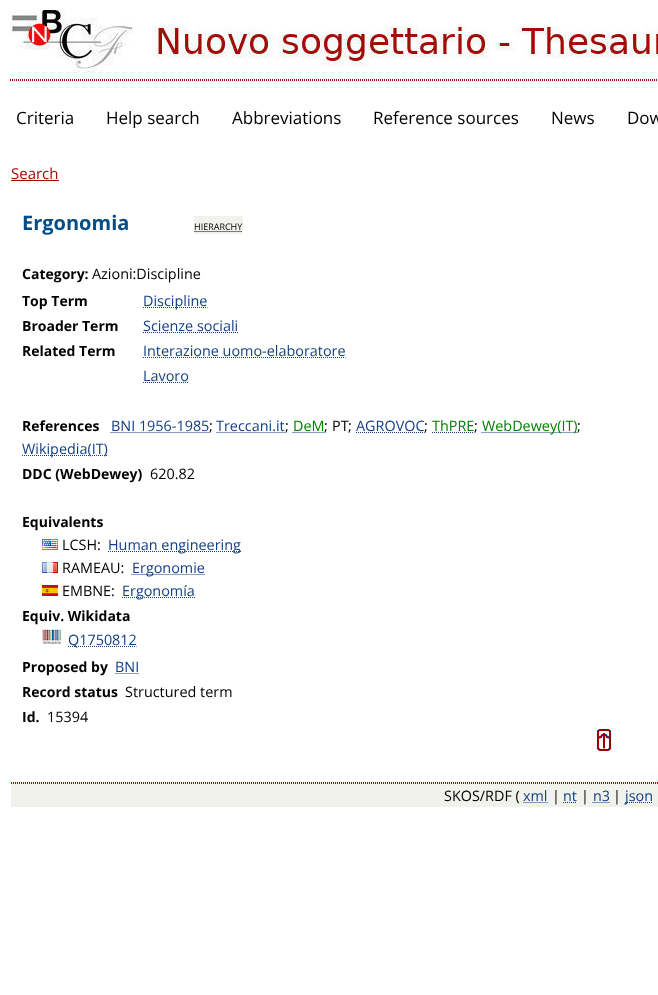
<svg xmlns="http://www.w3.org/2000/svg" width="658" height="995">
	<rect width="100%" height="100%" fill="#FFFFFF" />
	<image x="10" y="10" width="648" height="63" href="assets/img1.png" />
	<path d="M10 79.5H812" fill="none" stroke="#A10C06" stroke-dasharray="1 1" />
	<path d="M10 80.5H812" fill="none" stroke="#A10C06" stroke-dasharray="1 1" />
	<g font-family="Open Sans" font-size="17" fill="#000000">
		<text x="16" y="124">Criteria</text>
		<text x="106" y="124">Help search</text>
		<text x="232" y="124">Abbreviations</text>
		<text x="373" y="124">Reference sources</text>
		<text x="551" y="124">News</text>
		<text x="627" y="124">Dow</text>
	</g>
	<text x="11" y="179" font-family="Open Sans" font-size="15" fill="#A10C06">Search</text>
	<rect x="11" y="180" width="48" height="1" fill="#A10C06" />
	<text x="22" y="230" font-family="Open Sans" font-size="20" font-weight="700" fill="#044C83">Ergonomia</text>
	<rect x="194" y="216" width="49" height="18" fill="#F1F2EC" />
	<text x="194" y="230" font-family="Open Sans" font-size="9" fill="#000000">HIERARCHY</text>
	<path d="M194.5 231.5H242.5" fill="none" stroke="#000000" stroke-dasharray="1 1" />
	<text x="22" y="279" font-family="Open Sans" font-size="14" font-weight="700" fill="#000000">Category:</text>
	<text x="92" y="279" font-family="Open Sans" font-size="14.4" fill="#000000">Azioni:Discipline</text>
	<text x="22" y="306" font-family="Open Sans" font-size="14" font-weight="700" fill="#000000">Top Term</text>
	<path d="M143 307.5H207.5" fill="none" stroke="#133F84" stroke-dasharray="1 1" />
	<text x="143" y="306" font-family="Open Sans" font-size="14.4" fill="#133F84">Discipline</text>
	<text x="22" y="331" font-family="Open Sans" font-size="14" font-weight="700" fill="#000000">Broader Term</text>
	<text x="143" y="331" font-family="Open Sans" font-size="14.4" fill="#133F84">Scienze sociali</text>
	<path d="M143 332.5H238.5" fill="none" stroke="#133F84" stroke-dasharray="1 1" />
	<text x="22" y="356" font-family="Open Sans" font-size="14" font-weight="700" fill="#000000">Related Term</text>
	<text x="143" y="356" font-family="Open Sans" font-size="14.4" fill="#133F84">Interazione uomo-elaboratore</text>
	<path d="M143 357.5H345.5" fill="none" stroke="#133F84" stroke-dasharray="1 1" />
	<text x="143" y="381" font-family="Open Sans" font-size="14.4" fill="#133F84">Lavoro</text>
	<path d="M143 382.5H189" fill="none" stroke="#133F84" stroke-dasharray="1 1" />
	<text x="22" y="431" font-family="Open Sans" font-size="14" font-weight="700" fill="#000000">References</text>
	<text x="111" y="431" font-family="Open Sans" font-size="14.4" fill="#133F84">BNI 1956-1985</text>
	<path d="M110.5 432.5H209" fill="none" stroke="#133F84" stroke-dasharray="1 1" />
	<text x="209" y="431" font-family="Open Sans" font-size="14.4" fill="#000000">;</text>
	<text x="216" y="431" font-family="Open Sans" font-size="14.4" fill="#133F84">Treccani.it</text>
	<path d="M216.5 432.5H285" fill="none" stroke="#133F84" stroke-dasharray="1 1" />
	<text x="285" y="431" font-family="Open Sans" font-size="14.4" fill="#000000">;</text>
	<text x="293" y="431" font-family="Open Sans" font-size="14.4" fill="#008000">DeM</text>
	<path d="M292.5 432.5H324" fill="none" stroke="#133F84" stroke-dasharray="1 1" />
	<g font-family="Open Sans" font-size="14.4" fill="#000000">
		<text x="324" y="431">;</text>
		<text x="348" y="431">;</text>
		<text x="332" y="431">PT</text>
	</g>
	<text x="356" y="431" font-family="Open Sans" font-size="14.4" fill="#133F84">AGROVOC</text>
	<text x="424" y="431" font-family="Open Sans" font-size="14.4" fill="#000000">;</text>
	<path d="M356 432.5H424.5" fill="none" stroke="#133F84" stroke-dasharray="1 1" />
	<text x="432" y="431" font-family="Open Sans" font-size="14.4" fill="#008000">ThPRE</text>
	<path d="M432 432.5H474" fill="none" stroke="#133F84" stroke-dasharray="1 1" />
	<text x="474" y="431" font-family="Open Sans" font-size="14.4" fill="#000000">;</text>
	<path d="M481.5 432.5H577" fill="none" stroke="#133F84" stroke-dasharray="1 1" />
	<text x="482" y="431" font-family="Open Sans" font-size="14.4" fill="#008000">WebDewey(IT)</text>
	<text x="577" y="431" font-family="Open Sans" font-size="14.4" fill="#000000">;</text>
	<path d="M22 455.5H108" fill="none" stroke="#133F84" stroke-dasharray="1 1" />
	<text x="22" y="454" font-family="Open Sans" font-size="14.4" fill="#133F84">Wikipedia(IT)</text>
	<text x="22" y="479" font-family="Open Sans" font-size="14" font-weight="700" fill="#000000">DDC (WebDewey)</text>
	<text x="150" y="479" font-family="Open Sans" font-size="14.4" fill="#000000">620.82</text>
	<text x="22" y="527" font-family="Open Sans" font-size="14" font-weight="700" fill="#000000">Equivalents</text>
	<image x="42" y="539" width="16" height="11" href="assets/img2.png" />
	<text x="62" y="550" font-family="Open Sans" font-size="14.4" fill="#000000">LCSH:</text>
	<path d="M108 551.5H241" fill="none" stroke="#133F84" stroke-dasharray="1 1" />
	<text x="108" y="550" font-family="Open Sans" font-size="14.4" fill="#133F84">Human engineering</text>
	<image x="42" y="562" width="16" height="11" href="assets/img3.png" />
	<text x="62" y="573" font-family="Open Sans" font-size="14.4" fill="#000000">RAMEAU:</text>
	<path d="M131.5 574.5H204.5" fill="none" stroke="#133F84" stroke-dasharray="1 1" />
	<text x="132" y="573" font-family="Open Sans" font-size="14.4" fill="#133F84">Ergonomie</text>
	<image x="42" y="585" width="16" height="11" href="assets/img4.png" />
	<text x="62" y="596" font-family="Open Sans" font-size="14.4" fill="#000000">EMBNE:</text>
	<path d="M122 597.5H195" fill="none" stroke="#133F84" stroke-dasharray="1 1" />
	<text x="122" y="596" font-family="Open Sans" font-size="14.4" fill="#133F84">Ergonomía</text>
	<text x="22" y="621" font-family="Open Sans" font-size="14" font-weight="700" fill="#000000">Equiv. Wikidata</text>
	<image x="42" y="629" width="20" height="15" href="assets/img5.png" />
	<path d="M68 646.5H136.5" fill="none" stroke="#133F84" stroke-dasharray="1 1" />
	<text x="68" y="645" font-family="Open Sans" font-size="14.4" fill="#133F84">Q1750812</text>
	<text x="22" y="672" font-family="Open Sans" font-size="14" font-weight="700" fill="#000000">Proposed by</text>
	<text x="115" y="672" font-family="Open Sans" font-size="14.4" fill="#133F84">BNI</text>
	<path d="M115.5 673.5H139.5" fill="none" stroke="#133F84" stroke-dasharray="1 1" />
	<text x="22" y="697" font-family="Open Sans" font-size="14" font-weight="700" fill="#000000">Record status</text>
	<text x="125" y="697" font-family="Open Sans" font-size="14.4" fill="#000000">Structured term</text>
	<text x="22" y="722" font-family="Open Sans" font-size="14" font-weight="700" fill="#000000">Id.</text>
	<text x="47" y="722" font-family="Open Sans" font-size="14.4" fill="#000000">15394</text>
	<image x="597" y="729" width="14" height="22" href="assets/img6.png" />
	<rect x="11" y="782" width="647" height="25" fill="#F1F2EC" />
	<path d="M11 782.5H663" fill="none" stroke="#A10C06" stroke-dasharray="1 1" />
	<path d="M11 783.5H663" fill="none" stroke="#A10C06" stroke-dasharray="1 1" />
	<text x="444" y="801" font-family="Open Sans" font-size="14.4" fill="#000000">SKOS/RDF (</text>
	<text x="523" y="801" font-family="Open Sans" font-size="14.4" fill="#133F84">xml</text>
	<path d="M523.5 802.5H548" fill="none" stroke="#133F84" stroke-dasharray="1 1" />
	<text x="552" y="801" font-family="Open Sans" font-size="14.4" fill="#000000">|</text>
	<text x="563" y="801" font-family="Open Sans" font-size="14.4" fill="#133F84">nt</text>
	<path d="M563 802.5H577" fill="none" stroke="#133F84" stroke-dasharray="1 1" />
	<text x="581" y="801" font-family="Open Sans" font-size="14.4" fill="#000000">|</text>
	<text x="593" y="801" font-family="Open Sans" font-size="14.4" fill="#133F84">n3</text>
	<path d="M592.5 802.5H609.5" fill="none" stroke="#133F84" stroke-dasharray="1 1" />
	<text x="613" y="801" font-family="Open Sans" font-size="14.4" fill="#000000">|</text>
	<path d="M625 802.5H653" fill="none" stroke="#133F84" stroke-dasharray="1 1" />
	<text x="625" y="801" font-family="Open Sans" font-size="14.4" fill="#133F84">json</text>
</svg>
